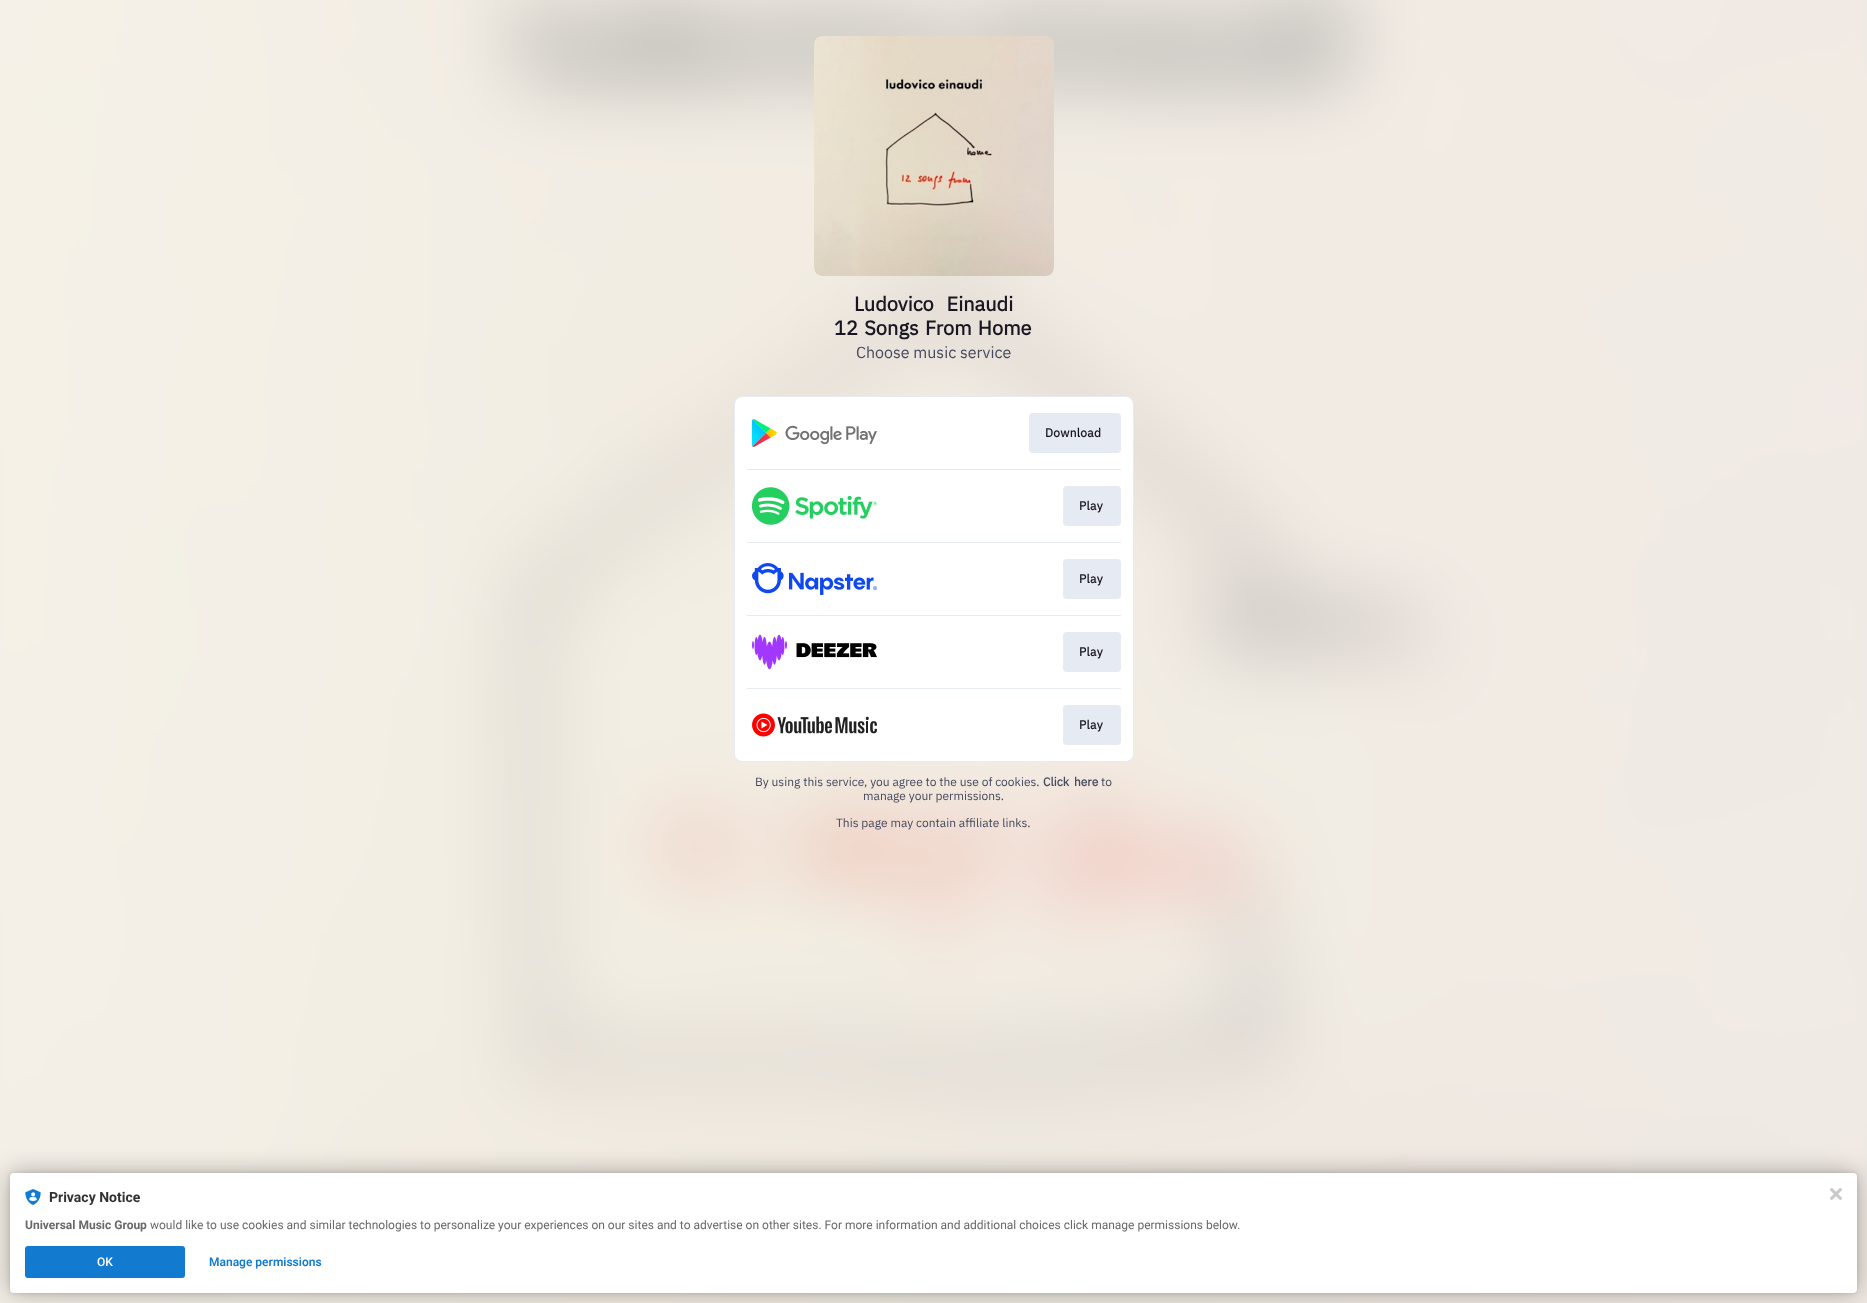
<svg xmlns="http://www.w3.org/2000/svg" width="1867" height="1303">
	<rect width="100%" height="100%" fill="#FFFFFF" />
	<image x="0" y="0" width="1867" height="1303" href="assets/img1.png" />
	<image x="814" y="36" width="240" height="240" href="assets/img2.png" />
	<g font-family="IBM Plex Sans" font-size="20" font-weight="700" fill="#181721">
		<text x="854" y="311" word-spacing="8">Ludovico Einaudi</text>
		<text x="834" y="335" word-spacing="1.5">12 Songs From Home</text>
	</g>
	<text x="856" y="358" font-family="IBM Plex Sans" font-size="16" fill="#454B5F">Choose music service</text>
	<rect x="734.5" y="396.5" width="399" height="365" rx="7.5" fill="none" stroke="#E6EAF2" />
	<rect x="735" y="397" width="398" height="364" rx="7" fill="#FFFFFF" />
	<image x="752" y="419" width="125" height="28" href="assets/img3.png" />
	<rect x="1029" y="413" width="92" height="40" rx="4" fill="#E6EAF2" />
	<text x="1045" y="437" font-family="IBM Plex Sans" font-size="12" font-weight="700" letter-spacing="0.25" fill="#181721">Download</text>
	<rect x="747" y="469" width="374" height="1" fill="#E6EAF2" />
	<image x="752" y="487" width="125" height="38" href="assets/img4.png" />
	<rect x="1063" y="486" width="58" height="40" rx="4" fill="#E6EAF2" />
	<text x="1079" y="510" font-family="IBM Plex Sans" font-size="12" font-weight="700" letter-spacing="0.25" fill="#181721">Play</text>
	<rect x="747" y="542" width="374" height="1" fill="#E6EAF2" />
	<image x="752" y="563" width="125" height="32" href="assets/img5.png" />
	<rect x="1063" y="559" width="58" height="40" rx="4" fill="#E6EAF2" />
	<text x="1079" y="583" font-family="IBM Plex Sans" font-size="12" font-weight="700" letter-spacing="0.25" fill="#181721">Play</text>
	<rect x="747" y="615" width="374" height="1" fill="#E6EAF2" />
	<image x="752" y="634" width="125" height="36" href="assets/img6.png" />
	<rect x="1063" y="632" width="58" height="40" rx="4" fill="#E6EAF2" />
	<text x="1079" y="656" font-family="IBM Plex Sans" font-size="12" font-weight="700" letter-spacing="0.25" fill="#181721">Play</text>
	<rect x="747" y="688" width="374" height="1" fill="#E6EAF2" />
	<image x="752" y="713" width="125" height="24" href="assets/img7.png" />
	<rect x="1063" y="705" width="58" height="40" rx="4" fill="#E6EAF2" />
	<text x="1079" y="729" font-family="IBM Plex Sans" font-size="12" font-weight="700" letter-spacing="0.25" fill="#181721">Play</text>
	<text x="755" y="786" font-family="IBM Plex Sans" font-size="12" fill="#454B5F">By using this service, you agree to the use of cookies.</text>
	<text x="1043" y="786" word-spacing="2" font-family="IBM Plex Sans" font-size="12" font-weight="700" fill="#454B5F">Click here</text>
	<g font-family="IBM Plex Sans" font-size="12" fill="#454B5F">
		<text x="1101" y="786">to</text>
		<text x="863" y="800">manage your permissions.</text>
		<text x="836" y="827">This page may contain affiliate links.</text>
	</g>
	<rect x="10" y="1173" width="1847" height="120" rx="4" fill="#000000" fill-opacity="0.12" filter="blur(2px)" />
	<rect x="10" y="1173" width="1847" height="120" rx="4" fill="#000000" fill-opacity="0.3" filter="blur(12px)" />
	<rect x="10" y="1173" width="1847" height="120" rx="4" fill="#FFFFFF" />
	<image x="25" y="1189" width="16" height="16" href="assets/img8.png" />
	<text x="49" y="1202" font-family="Roboto" font-size="14" font-weight="700" fill="#323232">Privacy Notice</text>
	<text x="25" y="1229" font-family="Roboto" font-size="12" font-weight="700" fill="#686868">Universal Music Group</text>
	<text x="150" y="1229" font-family="Roboto" font-size="12" fill="#686868">would like to use cookies and similar technologies to personalize your experiences on our sites and to advertise on other sites. For more information and additional choices click manage permissions below.</text>
	<rect x="25" y="1246" width="160" height="32" rx="3" fill="#137BCF" />
	<text x="97" y="1266" font-family="Roboto" font-size="12" font-weight="500" fill="#FFFFFF">OK</text>
	<text x="209" y="1266" font-family="Roboto" font-size="12" font-weight="600" fill="#137BCF">Manage permissions</text>
	<image x="1830" y="1188" width="12" height="12" href="assets/img9.png" />
</svg>
